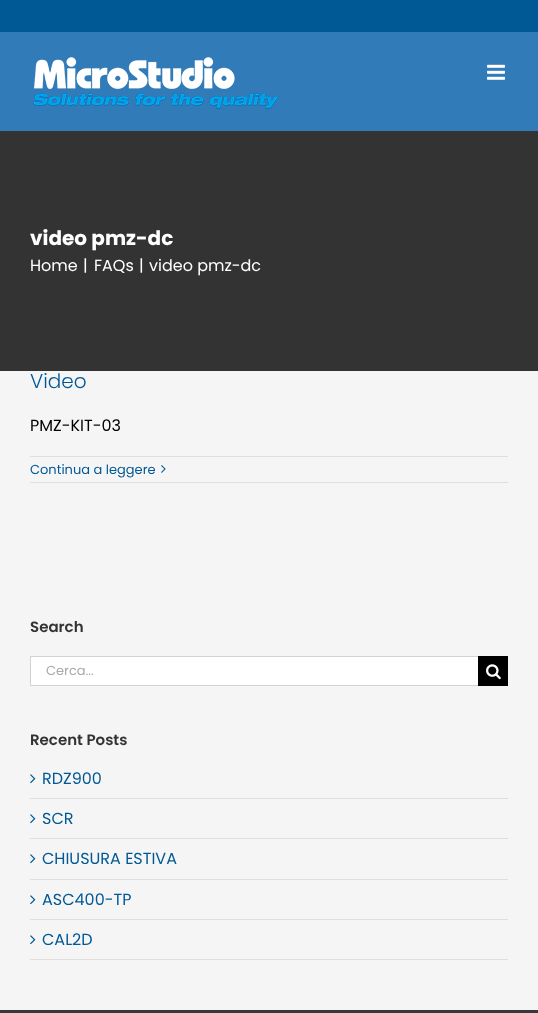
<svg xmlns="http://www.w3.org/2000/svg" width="538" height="1013">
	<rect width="100%" height="100%" fill="#F5F5F5" />
	<rect x="0" y="0" width="538" height="32" fill="#005995" />
	<rect x="0" y="32" width="538" height="99" fill="#327BB9" />
	<image x="33" y="57" width="246" height="52" href="assets/img1.png" />
	<image x="487" y="64" width="18" height="16" href="assets/img2.png" />
	<rect x="0" y="131" width="538" height="240" fill="#333333" />
	<text x="30" y="245" font-family="Poppins" font-size="20" font-weight="700" fill="#FFFFFF">video pmz-dc</text>
	<g font-family="Poppins" font-size="16" fill="#FFFFFF">
		<text x="30" y="271">Home</text>
		<text x="83" y="271">|</text>
		<text x="94" y="271">FAQs</text>
		<text x="139" y="271">|</text>
		<text x="149" y="271">video pmz-dc</text>
	</g>
	<text x="30" y="388" font-family="Poppins" font-size="20" font-weight="300" fill="#005995">Video</text>
	<text x="30" y="431" font-family="Poppins" font-size="16" fill="#000000">PMZ-KIT-03</text>
	<rect x="30" y="456" width="478" height="1" fill="#E0DEDE" />
	<rect x="30" y="482" width="478" height="1" fill="#E0DEDE" />
	<text x="30" y="474" font-family="Poppins" font-size="13" fill="#005995">Continua a leggere</text>
	<image x="161" y="465" width="5" height="8" href="assets/img3.png" />
	<text x="30" y="632" font-family="Poppins" font-size="15" font-weight="600" fill="#333333">Search</text>
	<rect x="31" y="657" width="447" height="28" fill="#FFFFFF" />
	<rect x="30" y="656" width="448" height="1" fill="#D2D2D2" />
	<rect x="30" y="685" width="448" height="1" fill="#D2D2D2" />
	<rect x="30" y="656" width="1" height="30" fill="#D2D2D2" />
	<text x="46" y="675" font-family="Poppins" font-size="13" fill="#AAA9A9">Cerca...</text>
	<rect x="478" y="656" width="30" height="30" fill="#000000" />
	<image x="486" y="664" width="15" height="16" href="assets/img4.png" />
	<text x="30" y="745" font-family="Poppins" font-size="15" font-weight="600" fill="#333333">Recent Posts</text>
	<rect x="30" y="798" width="478" height="1" fill="#E0DEDE" />
	<image x="30" y="774" width="6" height="10" href="assets/img5.png" />
	<text x="42" y="784" font-family="Poppins" font-size="16" fill="#005995">RDZ900</text>
	<rect x="30" y="838" width="478" height="1" fill="#E0DEDE" />
	<image x="30" y="814" width="6" height="10" href="assets/img5.png" />
	<text x="42" y="824" font-family="Poppins" font-size="16" fill="#005995">SCR</text>
	<rect x="30" y="879" width="478" height="1" fill="#E0DEDE" />
	<image x="30" y="854" width="6" height="10" href="assets/img5.png" />
	<text x="42" y="864" font-family="Poppins" font-size="16" fill="#005995">CHIUSURA ESTIVA</text>
	<rect x="30" y="919" width="478" height="1" fill="#E0DEDE" />
	<image x="30" y="895" width="6" height="10" href="assets/img5.png" />
	<text x="42" y="905" font-family="Poppins" font-size="16" fill="#005995">ASC400-TP</text>
	<rect x="30" y="959" width="478" height="1" fill="#E0DEDE" />
	<image x="30" y="935" width="6" height="10" href="assets/img5.png" />
	<text x="42" y="945" font-family="Poppins" font-size="16" fill="#005995">CAL2D</text>
	<rect x="0" y="1010" width="538" height="3" fill="#363839" />
</svg>
